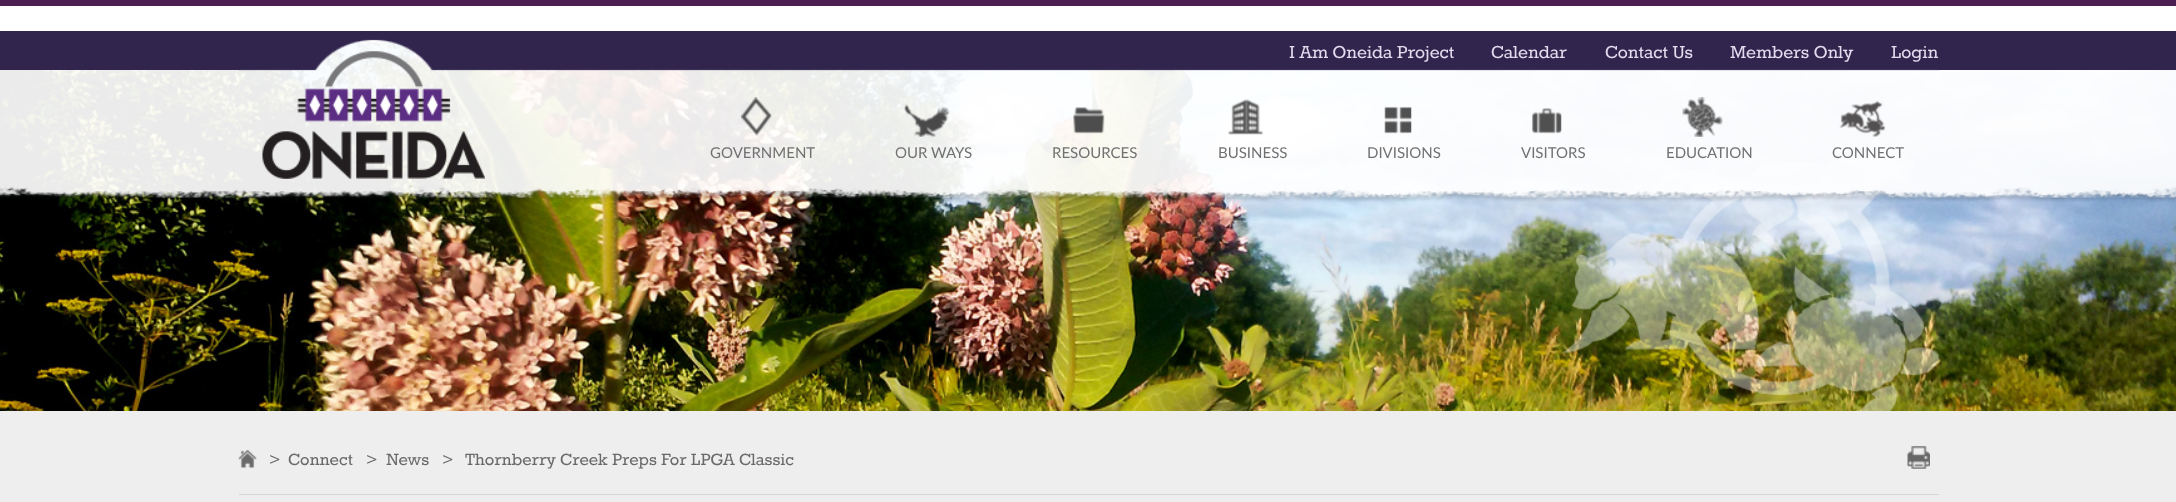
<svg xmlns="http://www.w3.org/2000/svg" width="2176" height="502">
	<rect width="100%" height="100%" fill="#FFFFFF" />
	<rect x="0" y="0" width="2176" height="6" fill="#4D1E52" />
	<image x="0" y="42" width="2176" height="369" href="assets/img1.png" />
	<image x="1562" y="136" width="377" height="275" href="assets/img2.png" />
	<rect x="0" y="42" width="2176" height="137" fill="#FFFFFF" fill-opacity="0.92" />
	<rect x="0" y="31" width="240" height="39" fill="#31254D" />
	<rect x="1938" y="31" width="238" height="39" fill="#31254D" />
	<image x="262" y="51" width="223" height="128" href="assets/img4.png" />
	<image x="238" y="31" width="1701" height="40" href="assets/img3.png" />
	<g font-family="Rokkitt" font-size="21.25" fill="#E2DCEE">
		<text x="1289" y="58">I Am Oneida Project</text>
		<text x="1491" y="58">Calendar</text>
		<text x="1605" y="58">Contact Us</text>
		<text x="1730" y="58">Members Only</text>
		<text x="1891" y="58">Login</text>
	</g>
	<image x="741" y="97" width="31" height="39" href="assets/img5.png" />
	<text x="710" y="158" font-family="Lato" font-size="15" fill="#717171">GOVERNMENT</text>
	<image x="904" y="104" width="46" height="33" href="assets/img6.png" />
	<text x="895" y="158" font-family="Lato" font-size="15" fill="#717171">OUR WAYS</text>
	<image x="1073" y="107" width="32" height="27" href="assets/img7.png" />
	<text x="1052" y="158" font-family="Lato" font-size="15" fill="#717171">RESOURCES</text>
	<image x="1228" y="99" width="36" height="36" href="assets/img8.png" />
	<text x="1218" y="158" font-family="Lato" font-size="15" fill="#717171">BUSINESS</text>
	<image x="1384" y="106" width="28" height="28" href="assets/img9.png" />
	<text x="1367" y="158" font-family="Lato" font-size="15" fill="#717171">DIVISIONS</text>
	<image x="1532" y="108" width="30" height="26" href="assets/img10.png" />
	<text x="1521" y="158" font-family="Lato" font-size="15" fill="#717171">VISITORS</text>
	<image x="1682" y="97" width="41" height="40" href="assets/img11.png" />
	<text x="1666" y="158" font-family="Lato" font-size="15" fill="#717171">EDUCATION</text>
	<image x="1839" y="100" width="46" height="37" href="assets/img12.png" />
	<text x="1832" y="158" font-family="Lato" font-size="15" fill="#717171">CONNECT</text>
	<image x="0" y="179" width="2176" height="23" href="assets/img13.png" />
	<rect x="0" y="411" width="2176" height="91" fill="#EEEEEE" />
	<rect x="239" y="494" width="1700" height="1" fill="#D6D6D6" />
	<image x="238" y="450" width="19" height="18" href="assets/img14.png" />
	<g font-family="Rokkitt" font-size="20" fill="#696969">
		<text x="269" y="465">&gt;</text>
		<text x="288" y="465">Connect</text>
		<text x="366" y="465">&gt;</text>
		<text x="386" y="465">News</text>
		<text x="442" y="465">&gt;</text>
		<text x="465" y="465">Thornberry Creek Preps For LPGA Classic</text>
	</g>
	<image x="1907" y="446" width="23" height="23" href="assets/img15.png" />
</svg>
